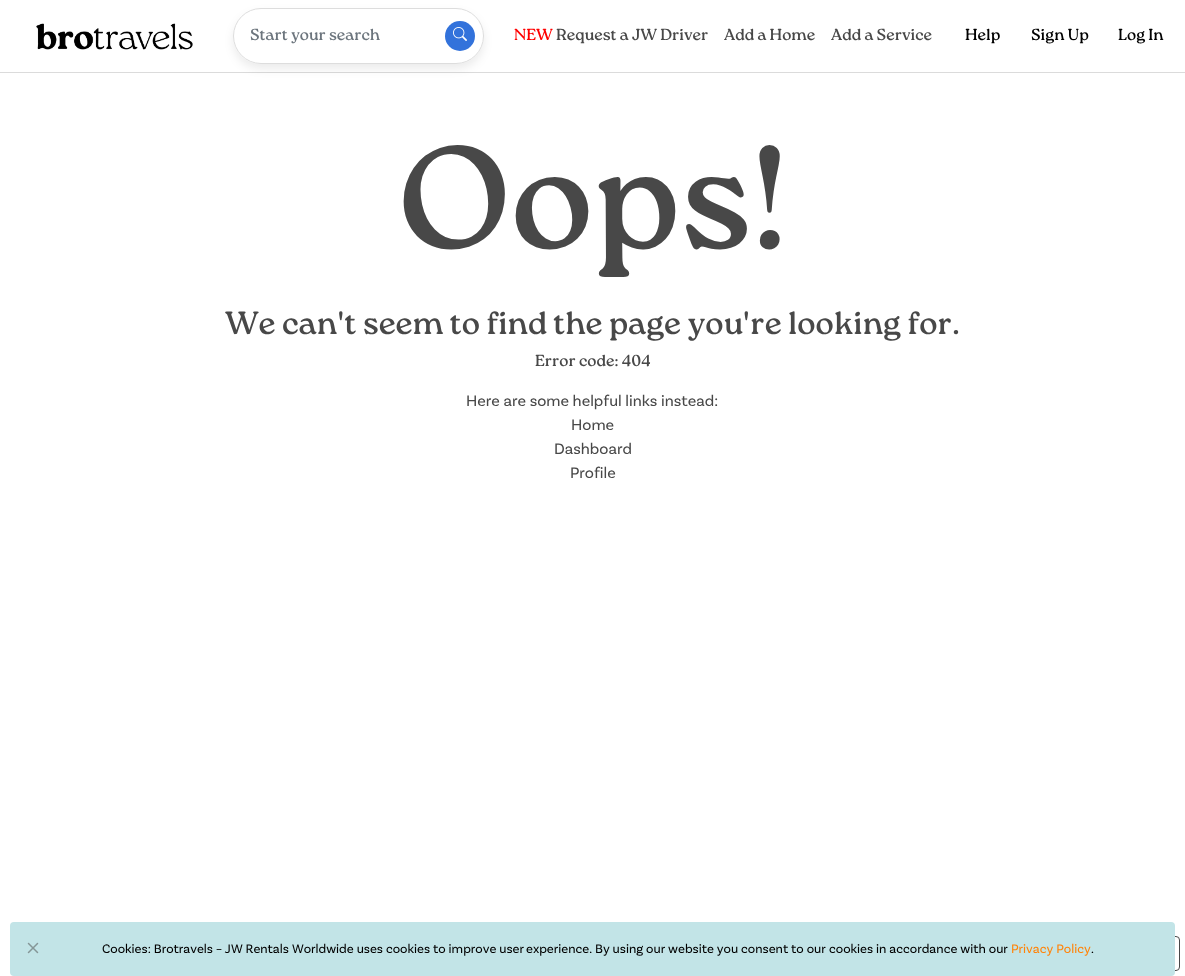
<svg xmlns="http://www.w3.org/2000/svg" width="1185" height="976">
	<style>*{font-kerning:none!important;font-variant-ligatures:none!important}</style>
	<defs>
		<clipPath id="clip1"><path d="M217 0H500V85H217ZM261 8H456C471.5 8 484 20.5 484 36C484 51.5 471.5 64 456 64H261C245.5 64 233 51.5 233 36C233 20.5 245.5 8 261 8Z" clip-rule="evenodd" /></clipPath>
	</defs>
	<rect width="100%" height="100%" fill="#FFFFFF" />
	<rect x="0" y="72" width="1185" height="1" fill="#DBDBDB" />
	<image x="36" y="23" width="157" height="27" href="assets/img1.png" />
	<g clip-path="url(#clip1)">
		<rect x="233" y="13" width="251" height="56" rx="28" fill="#000000" fill-opacity="0.08" filter="blur(5px)" />
	</g>
	<rect x="233.5" y="8.5" width="250" height="55" rx="27.5" fill="none" stroke="#DDDDDD" />
	<text x="250" y="40" font-family="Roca" font-size="16" fill="#6C757D">Start your search</text>
	<circle cx="460" cy="36" r="15" fill="#3272DB" />
	<image x="453" y="27" width="14" height="14" href="assets/img2.png" />
	<text x="514" y="40" font-family="Roca" font-size="16" fill="#FF0000">NEW</text>
	<g font-family="Roca" font-size="16" fill="#484848">
		<text x="556" y="40">Request a JW Driver</text>
		<text x="724" y="40">Add a Home</text>
		<text x="831" y="40">Add a Service</text>
	</g>
	<g font-family="Roca" font-size="16" fill="#000000">
		<text x="965" y="40">Help</text>
		<text x="1031" y="40">Sign Up</text>
		<text x="1118" y="40">Log In</text>
	</g>
	<text x="398" y="248" font-family="Roca" font-size="145" fill="#484848">Oops!</text>
	<text x="225" y="334" font-family="Roca" font-size="32" fill="#484848">We can't seem to find the</text>
	<text x="609" y="334" font-family="Roca" font-size="32" fill="#484848">page you're looking for.</text>
	<text x="535" y="366" font-family="Roca" font-size="16" fill="#484848">Error code: 404</text>
	<g font-family="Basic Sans" font-size="16" fill="#484848">
		<text x="466" y="406">Here are some helpful links instead:</text>
		<text x="571" y="430">Home</text>
		<text x="554" y="454">Dashboard</text>
		<text x="570" y="478">Profile</text>
	</g>
	<rect x="932.5" y="936.5" width="247" height="34" rx="3.5" fill="none" stroke="#484848" />
	<rect x="10" y="922" width="1165" height="54" rx="4" fill="#C2E4E7" />
	<image x="27" y="942" width="12" height="12" href="assets/img3.png" />
	<text x="102" y="953" font-family="Basic Sans" font-size="13" fill="#000000">Cookies: Brotravels – JW Rentals Worldwide uses cookies to improve user</text>
	<text x="526" y="953" font-family="Basic Sans" font-size="13" fill="#000000">experience. By using our website you consent to our</text>
	<text x="829" y="953" font-family="Basic Sans" font-size="13" fill="#000000">cookies in accordance with our</text>
	<text x="1011" y="953" font-family="Basic Sans" font-size="13" fill="#FF840A">Privacy Policy</text>
	<text x="1091" y="953" font-family="Basic Sans" font-size="13" fill="#000000">.</text>
</svg>
